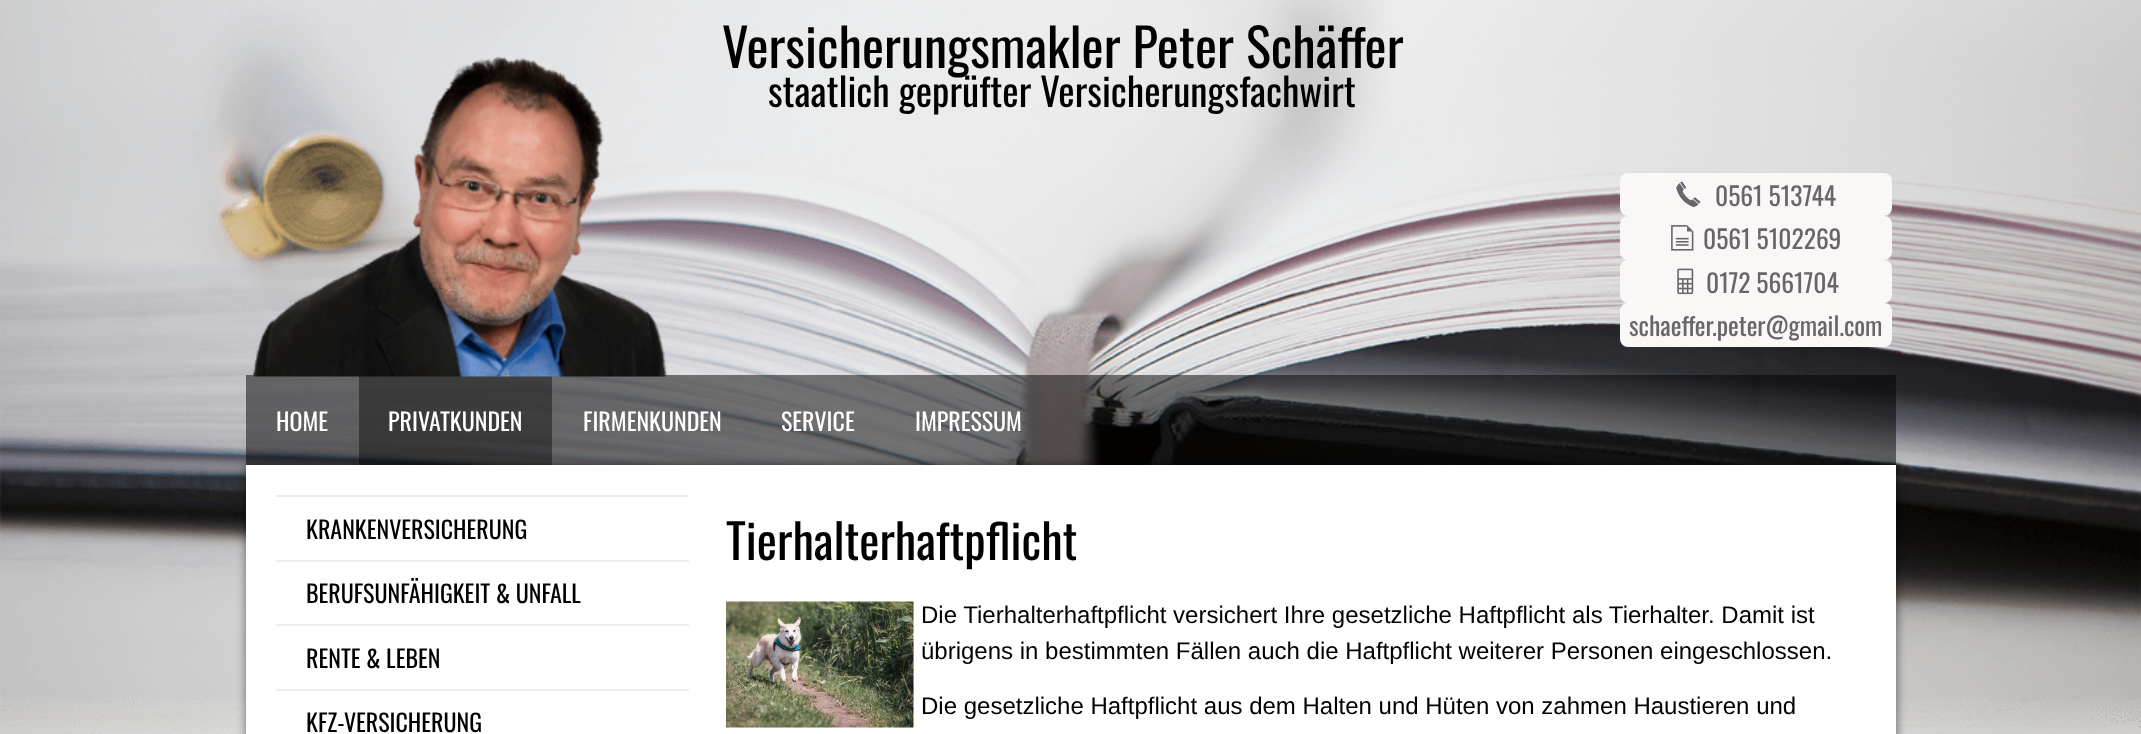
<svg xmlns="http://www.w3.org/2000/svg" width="2141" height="734">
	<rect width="100%" height="100%" fill="#F2F2F2" />
	<image x="0" y="0" width="2141" height="734" href="assets/img1.png" />
	<rect x="246" y="375" width="1650" height="90" fill="#000000" fill-opacity="0.5" />
	<rect x="359" y="375" width="193" height="90" fill="#000000" fill-opacity="0.4" />
	<image x="252" y="56" width="415" height="321" href="assets/img2.png" />
	<text x="722" y="68" font-family="Oswald" font-size="52.5" fill="#000000">Versicherungsmakler Peter Schäffer</text>
	<text x="768" y="107" font-family="Oswald" font-size="39" fill="#000000">staatlich geprüfter Versicherungsfachwirt</text>
	<rect x="1620" y="173" width="272" height="43" rx="8" fill="#FAF7F7" />
	<image x="1676" y="181" width="25" height="26" href="assets/img3.png" />
	<text x="1715" y="206" font-family="Oswald" font-size="25.5" fill="#6B656B">0561 513744</text>
	<rect x="1620" y="216" width="272" height="44" rx="8" fill="#FAF7F7" />
	<image x="1671" y="225" width="23" height="26" href="assets/img4.png" />
	<text x="1703" y="249" font-family="Oswald" font-size="25.5" fill="#6B656B">0561 5102269</text>
	<rect x="1620" y="260" width="272" height="43" rx="8" fill="#FAF7F7" />
	<image x="1677" y="268" width="17" height="27" href="assets/img5.png" />
	<text x="1706" y="293" font-family="Oswald" font-size="25.5" fill="#6B656B">0172 5661704</text>
	<rect x="1620" y="303" width="272" height="44" rx="8" fill="#FAF7F7" />
	<text x="1629" y="336" font-family="Oswald" font-size="25.5" fill="#6B656B">schaeffer.peter@gmail.com</text>
	<g font-family="Oswald" font-size="24" fill="#FFFFFF">
		<text x="276" y="431">HOME</text>
		<text x="388" y="431">PRIVATKUNDEN</text>
	</g>
	<rect x="245" y="464" width="1653" height="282" fill="#000000" fill-opacity="0.4" filter="blur(4px)" />
	<rect x="246" y="465" width="1650" height="269" fill="#FFFFFF" />
	<rect x="276" y="495" width="413" height="2" fill="#EEEEEE" />
	<text x="306" y="539" font-family="Oswald" font-size="24" fill="#000000">KRANKENVERSICHERUNG</text>
	<rect x="276" y="560" width="413" height="2" fill="#EEEEEE" />
	<text x="306" y="603" font-family="Oswald" font-size="24" fill="#000000">BERUFSUNFÄHIGKEIT &amp; UNFALL</text>
	<rect x="276" y="624" width="413" height="2" fill="#EEEEEE" />
	<text x="306" y="668" font-family="Oswald" font-size="24" fill="#000000">RENTE &amp; LEBEN</text>
	<rect x="276" y="689" width="413" height="2" fill="#EEEEEE" />
	<text x="306" y="732" font-family="Oswald" font-size="24" fill="#000000">KFZ-VERSICHERUNG</text>
	<g font-family="Oswald" font-size="24" fill="#FFFFFF">
		<text x="583" y="431">FIRMENKUNDEN</text>
		<text x="781" y="431">SERVICE</text>
		<text x="915" y="431">IMPRESSUM</text>
	</g>
	<text x="726" y="560" font-family="Oswald" font-size="48" fill="#000000">Tierhalterhaftpflicht</text>
	<image x="726" y="601" width="188" height="127" href="assets/img6.png" />
	<g font-family="Liberation Sans" font-size="24" fill="#000000">
		<text x="921" y="623">Die Tierhalterhaftpflicht versichert Ihre gesetzliche Haftpflicht als Tierhalter. Damit ist</text>
		<text x="921" y="659">übrigens in bestimmten Fällen auch die Haftpflicht weiterer Personen eingeschlossen.</text>
		<text x="921" y="714">Die gesetzliche Haftpflicht aus dem Halten und Hüten von zahmen Haustieren und</text>
	</g>
</svg>
